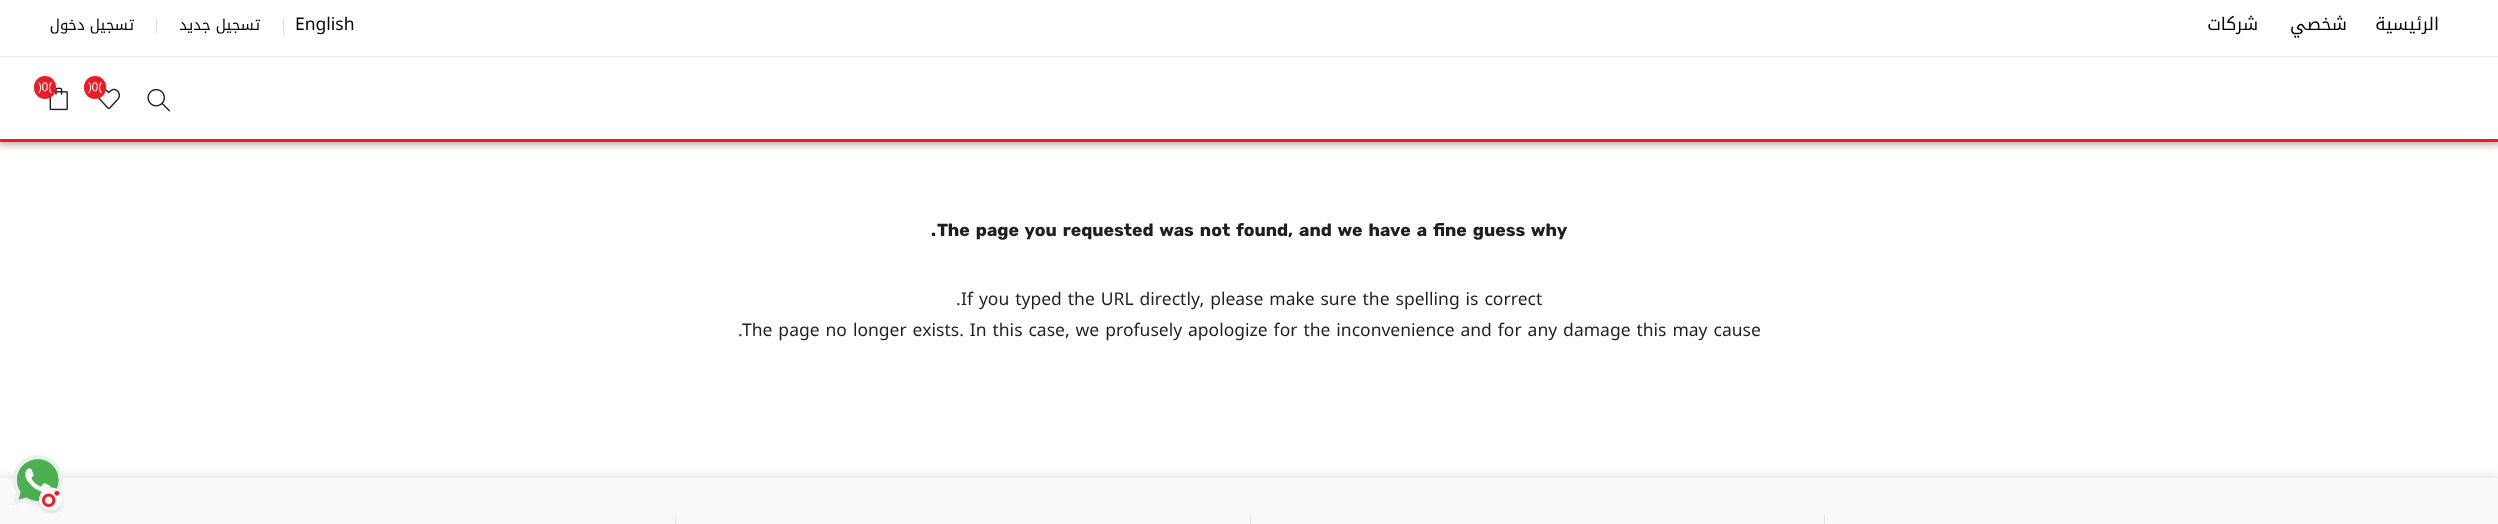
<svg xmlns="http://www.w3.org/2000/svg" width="2498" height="524">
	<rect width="100%" height="100%" fill="#FFFFFF" />
	<rect x="-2" y="-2" width="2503" height="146" fill="#B39E9E" filter="blur(4px)" />
	<rect x="0" y="0" width="2498" height="139" fill="#FFFFFF" />
	<rect x="0" y="139" width="2498" height="3" fill="#ED1C24" />
	<rect x="0" y="56" width="2498" height="1" fill="#EBEBEB" />
	<text x="134" y="30" font-family="Noto Kufi Arabic" font-size="15" direction="rtl" fill="#000000">تسجيل دخول</text>
	<rect x="156" y="18" width="1" height="15" fill="#DDDDDD" />
	<text x="260" y="30" font-family="Noto Kufi Arabic" font-size="15" direction="rtl" fill="#000000">تسجيل جديد</text>
	<rect x="283" y="18" width="1" height="18" fill="#DDDDDD" />
	<text x="295" y="30" font-family="Noto Sans" font-size="17.5" fill="#000000">English</text>
	<g font-family="Noto Kufi Arabic" font-size="17.5" direction="rtl" fill="#000000">
		<text x="2258" y="30">شركات</text>
		<text x="2347" y="30">شخصي</text>
		<text x="2439" y="30">الرئيسية</text>
	</g>
	<image x="49" y="87" width="19" height="24" href="assets/img1.png" />
	<rect x="34" y="76" width="22" height="23" rx="11" fill="#ED1C24" />
	<text x="38" y="91" font-family="Noto Sans" font-size="12" fill="#FFFFFF">)0(</text>
	<image x="98" y="88" width="22" height="21" href="assets/img2.png" />
	<rect x="84" y="76" width="22" height="23" rx="11" fill="#ED1C24" />
	<text x="88" y="91" font-family="Noto Sans" font-size="12" fill="#FFFFFF">)0(</text>
	<image x="147" y="88" width="23" height="24" href="assets/img3.png" />
	<g font-family="Rubik" font-size="17.5" font-weight="700" fill="#221E20">
		<text x="931" y="236">.</text>
		<text x="937" y="236" word-spacing="2.4">The page you requested was not found, and we have a fine guess why</text>
	</g>
	<g font-family="Noto Sans" font-size="17.5" fill="#221E20">
		<text x="956" y="305">.</text>
		<text x="961" y="305" word-spacing="1.4">If you typed the URL directly, please make sure the spelling is correct</text>
		<text x="738" y="336">.</text>
		<text x="742" y="336" word-spacing="1.4">The page no longer exists. In this case, we profusely apologize for the inconvenience and for any damage this may cause</text>
	</g>
	<rect x="-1" y="476" width="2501" height="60" fill="#E2E2E2" filter="blur(4px)" />
	<rect x="0" y="478" width="2498" height="46" fill="#F9F9F9" />
	<rect x="675" y="515" width="1" height="9" fill="#E2E2E2" />
	<rect x="1250" y="515" width="1" height="9" fill="#E2E2E2" />
	<rect x="1824" y="515" width="1" height="9" fill="#E2E2E2" />
	<image x="12" y="455" width="52" height="59" href="assets/img4.png" />
</svg>
